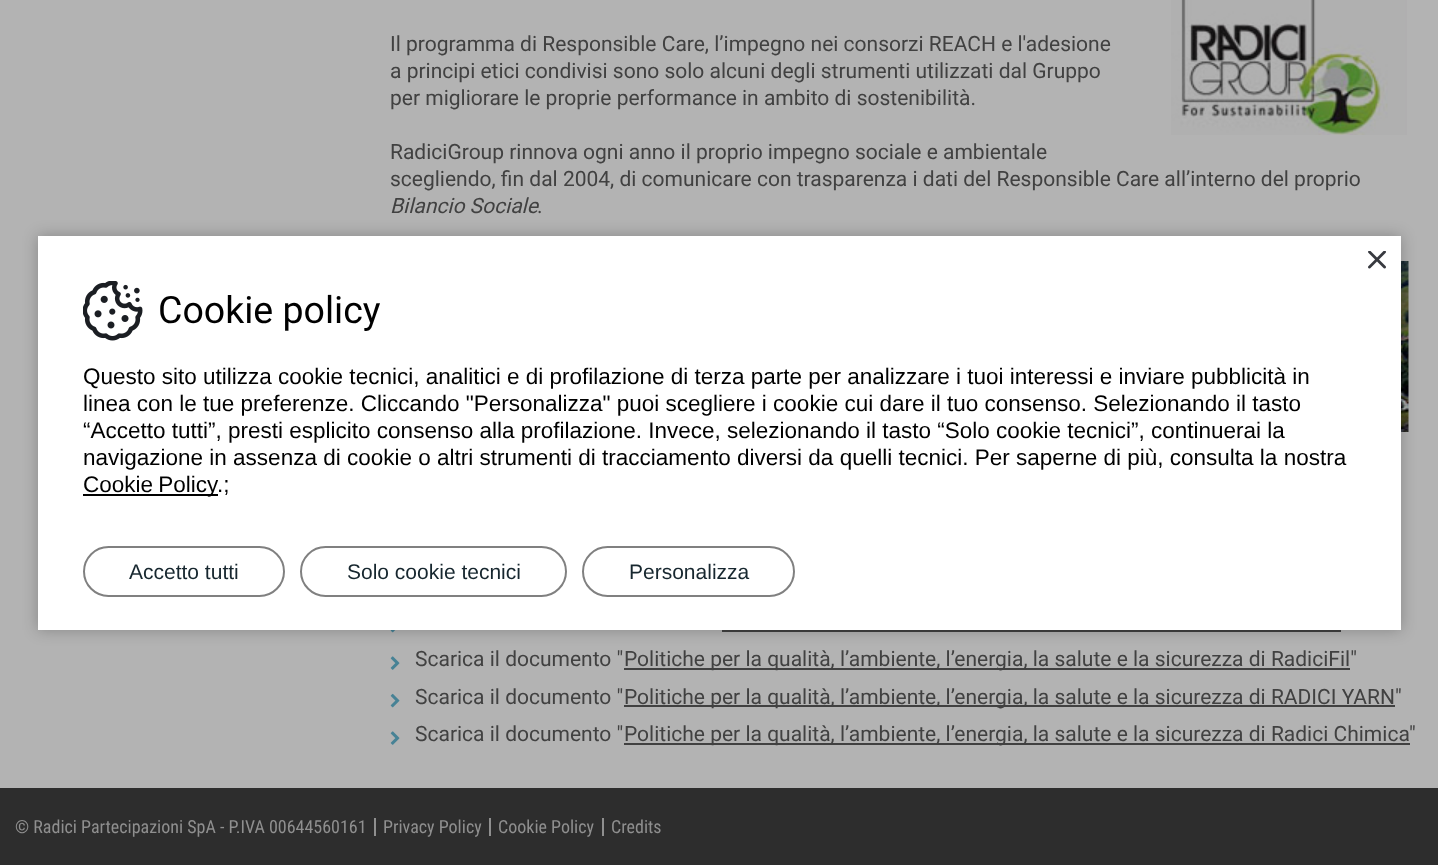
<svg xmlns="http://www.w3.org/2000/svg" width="1438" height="865">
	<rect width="100%" height="100%" fill="#2D2D2D" />
	<rect x="0" y="0" width="1438" height="788" fill="#B3B3B3" />
	<text x="390" y="51" font-family="Roboto" font-size="21" fill="#414141">Il programma di Responsible Care, l’impegno nei consorzi REACH e l'adesione</text>
	<image x="1171" y="0" width="236" height="135" href="assets/img1.png" />
	<g font-family="Roboto" font-size="21" fill="#414141">
		<text x="390" y="78">a principi etici condivisi sono solo alcuni degli strumenti utilizzati dal Gruppo</text>
		<text x="390" y="105">per migliorare le proprie performance in ambito di sostenibilità.</text>
		<text x="390" y="159">RadiciGroup rinnova ogni anno il proprio impegno sociale e ambientale</text>
		<text x="390" y="186">scegliendo, fin dal 2004, di comunicare con trasparenza i dati del Responsible Care all’interno del proprio</text>
	</g>
	<text x="390" y="213" font-family="Roboto" font-size="21" font-style="italic" fill="#414141">Bilancio Sociale</text>
	<text x="537" y="213" font-family="Roboto" font-size="21" fill="#414141">.</text>
	<image x="1401" y="261" width="8" height="171" href="assets/img2.png" />
	<image x="390" y="630" width="6" height="3" href="assets/img3.png" />
	<rect x="722" y="630" width="619" height="2" fill="#414141" />
	<image x="390" y="656" width="10" height="14" href="assets/img4.png" />
	<text x="415" y="666" font-family="Roboto" font-size="21" fill="#414141">Scarica il documento "</text>
	<rect x="624" y="668" width="726" height="2" fill="#414141" />
	<text x="624" y="666" font-family="Roboto" font-size="21" fill="#414141">Politiche per la qualità, l’ambiente, l’energia, la salute e la sicurezza di RadiciFil"</text>
	<image x="390" y="693" width="10" height="15" href="assets/img5.png" />
	<text x="415" y="704" font-family="Roboto" font-size="21" fill="#414141">Scarica il documento "</text>
	<rect x="624" y="705" width="771" height="2" fill="#414141" />
	<text x="624" y="704" font-family="Roboto" font-size="21" fill="#414141">Politiche per la qualità, l’ambiente, l’energia, la salute e la sicurezza di RADICI YARN"</text>
	<image x="390" y="731" width="10" height="14" href="assets/img4.png" />
	<text x="415" y="741" font-family="Roboto" font-size="21" fill="#414141">Scarica il documento "</text>
	<rect x="624" y="743" width="786" height="2" fill="#414141" />
	<text x="624" y="741" font-family="Roboto" font-size="21" fill="#414141">Politiche per la qualità, l’ambiente, l’energia, la salute e la sicurezza di Radici Chimica"</text>
	<rect x="38" y="236" width="1363" height="394" fill="#000000" fill-opacity="0.25" filter="blur(7.5px)" />
	<rect x="38" y="236" width="1363" height="394" fill="#FFFFFF" />
	<image x="1368" y="251" width="18" height="18" href="assets/img6.png" />
	<image x="83" y="281" width="60" height="60" href="assets/img7.png" />
	<text x="158" y="323" font-family="Roboto" font-size="37.5" fill="#000000">Cookie policy</text>
	<g font-family="Liberation Sans" font-size="22.5" fill="#000000">
		<text x="83" y="384">Questo sito utilizza cookie tecnici, analitici e di profilazione di terza parte per analizzare i tuoi interessi e inviare pubblicità in</text>
		<text x="83" y="411">linea con le tue preferenze. Cliccando "Personalizza" puoi scegliere i cookie cui dare il tuo consenso. Selezionando il tasto</text>
		<text x="83" y="438">“Accetto tutti”, presti esplicito consenso alla profilazione. Invece, selezionando il tasto “Solo cookie tecnici”, continuerai la</text>
		<text x="83" y="465">navigazione in assenza di cookie o altri strumenti di tracciamento diversi da quelli tecnici. Per saperne di più, consulta la nostra</text>
	</g>
	<rect x="83" y="494" width="135" height="2" fill="#000000" />
	<g font-family="Liberation Sans" font-size="22.5" fill="#000000">
		<text x="83" y="492" word-spacing="-1">Cookie Policy</text>
		<text x="217" y="492">.;</text>
	</g>
	<rect x="84" y="547" width="200" height="49" rx="24.5" fill="none" stroke="#808080" stroke-width="2" />
	<text x="129" y="579" font-family="Liberation Sans" font-size="21" fill="#17272F">Accetto tutti</text>
	<rect x="301" y="547" width="265" height="49" rx="24.5" fill="none" stroke="#808080" stroke-width="2" />
	<text x="347" y="579" font-family="Liberation Sans" font-size="21" fill="#17272F">Solo cookie tecnici</text>
	<rect x="583" y="547" width="211" height="49" rx="24.5" fill="none" stroke="#808080" stroke-width="2" />
	<text x="629" y="579" font-family="Liberation Sans" font-size="21" fill="#17272F">Personalizza</text>
	<text x="15" y="833" font-family="Roboto Condensed" font-size="18" fill="#8F8F8F">© Radici Partecipazioni SpA - P.IVA 00644560161</text>
	<rect x="374" y="818" width="2" height="18" fill="#8F8F8F" />
	<text x="383" y="833" font-family="Roboto Condensed" font-size="18" fill="#8F8F8F">Privacy Policy</text>
	<rect x="489" y="818" width="2" height="18" fill="#8F8F8F" />
	<text x="498" y="833" font-family="Roboto Condensed" font-size="18" fill="#8F8F8F">Cookie Policy</text>
	<rect x="602" y="818" width="2" height="18" fill="#8F8F8F" />
	<text x="611" y="833" font-family="Roboto Condensed" font-size="18" fill="#8F8F8F">Credits</text>
</svg>
